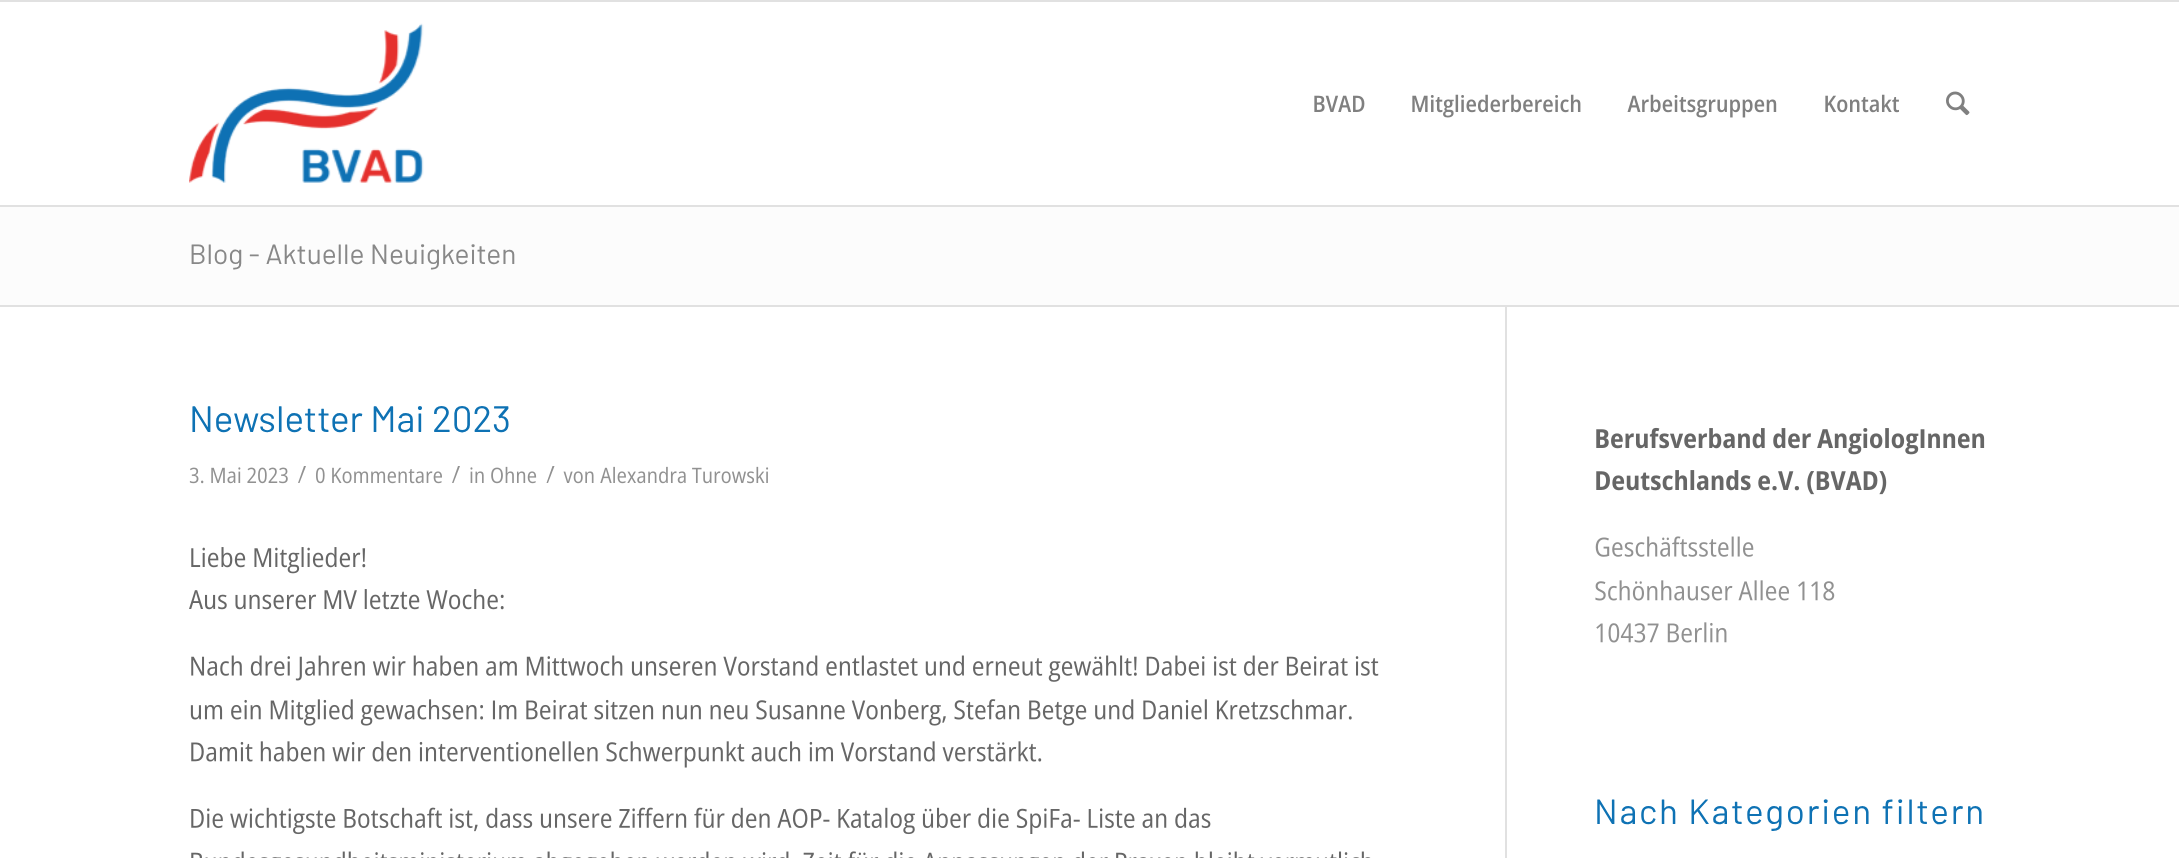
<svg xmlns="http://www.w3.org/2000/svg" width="2179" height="858">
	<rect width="100%" height="100%" fill="#FFFFFF" />
	<rect x="0" y="0" width="2179" height="2" fill="#E1E1E1" />
	<rect x="0" y="205" width="2179" height="2" fill="#E1E1E1" />
	<image x="189" y="23" width="235" height="160" href="assets/img1.png" />
	<image x="1314" y="95" width="51" height="17" href="assets/img2.png" />
	<image x="1412" y="94" width="169" height="24" href="assets/img3.png" />
	<image x="1627" y="94" width="150" height="24" href="assets/img4.png" />
	<image x="1825" y="94" width="74" height="19" href="assets/img5.png" />
	<image x="1946" y="91" width="24" height="25" href="assets/img6.png" />
	<rect x="0" y="207" width="2179" height="98" fill="#FCFCFC" />
	<text x="189" y="264" font-family="Barlow" font-size="28" fill="#888888">Blog - Aktuelle Neuigkeiten</text>
	<rect x="0" y="305" width="2179" height="2" fill="#E1E1E1" />
	<rect x="1505" y="306" width="2" height="552" fill="#E1E1E1" />
	<text x="189" y="432" font-family="Barlow" font-size="36.75" fill="#0E72B4">Newsletter Mai 2023</text>
	<image x="189" y="467" width="99" height="17" href="assets/img7.png" />
	<path d="M306 466L299.5 483H298L304 466Z" fill="#919191" />
	<image x="316" y="467" width="126" height="17" href="assets/img8.png" />
	<path d="M460 466L453.5 483H452L458 466Z" fill="#919191" />
	<image x="470" y="467" width="14" height="16" href="assets/img9.png" />
	<image x="491" y="466" width="46" height="18" href="assets/img10.png" />
	<path d="M554.5 466L548 483H546.5L552.5 466Z" fill="#919191" />
	<image x="563" y="471" width="31" height="13" href="assets/img11.png" />
	<image x="600" y="466" width="169" height="18" href="assets/img12.png" />
	<image x="191" y="547" width="175" height="27" href="assets/img13.png" />
	<image x="189" y="589" width="315" height="21" href="assets/img14.png" />
	<image x="191" y="655" width="1188" height="27" href="assets/img15.png" />
	<image x="190" y="699" width="1162" height="27" href="assets/img16.png" />
	<image x="191" y="741" width="851" height="27" href="assets/img17.png" />
	<image x="191" y="807" width="1020" height="28" href="assets/img18.png" />
	<image x="191" y="851" width="1180" height="7" href="assets/img19.png" />
	<image x="1596" y="427" width="389" height="28" href="assets/img20.png" />
	<image x="1596" y="470" width="291" height="25" href="assets/img21.png" />
	<image x="1595" y="536" width="159" height="21" href="assets/img22.png" />
	<image x="1595" y="580" width="240" height="21" href="assets/img23.png" />
	<image x="1596" y="622" width="131" height="21" href="assets/img24.png" />
	<text x="1594" y="824" font-family="Barlow" font-size="35" letter-spacing="1.75" fill="#0E72B4">Nach Kategorien filtern</text>
</svg>
